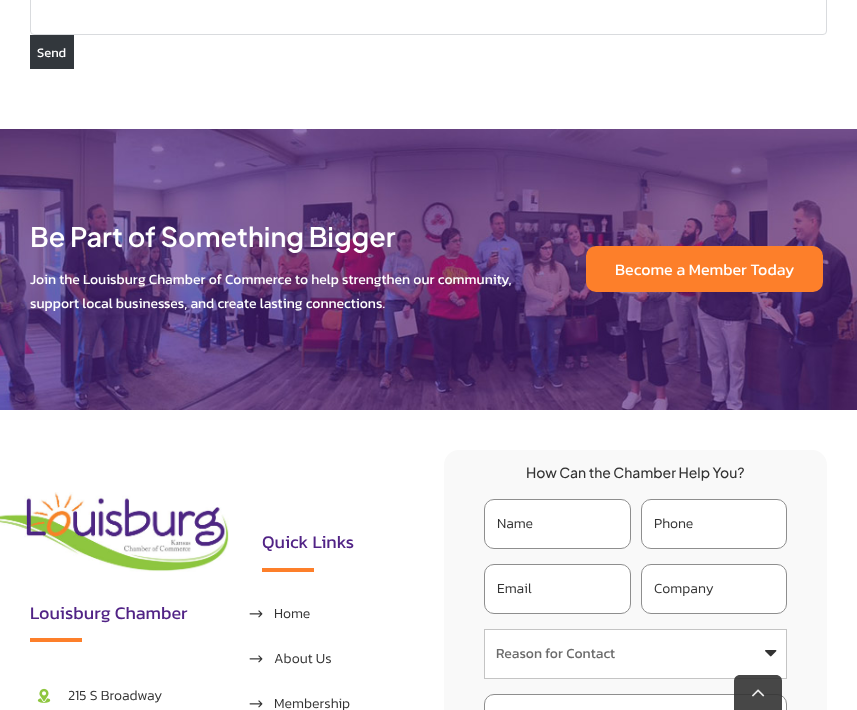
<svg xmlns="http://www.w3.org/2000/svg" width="857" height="710">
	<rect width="100%" height="100%" fill="#FFFFFF" />
	<rect x="30.5" y="-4.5" width="796" height="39" rx="3.5" fill="none" stroke="#D9DBDE" />
	<rect x="30" y="35" width="44" height="34" fill="#32373C" />
	<text x="37" y="57" font-family="Kanit" font-size="13" fill="#FFFFFF">Send</text>
	<image x="0" y="129" width="857" height="281" href="assets/img1.png" />
	<text x="30" y="247" font-family="Plus Jakarta Sans" font-size="27" font-weight="600" fill="#FFFFFF">Be Part of Something Bigger</text>
	<g font-family="Kanit" font-size="14" fill="#FFFFFF">
		<text x="30" y="284">Join the Louisburg Chamber of Commerce to help strengthen our community,</text>
		<text x="30" y="308">support local businesses, and create lasting connections.</text>
	</g>
	<rect x="586" y="246" width="237" height="46" rx="10" fill="#FD7F2A" />
	<text x="615" y="275" font-family="Kanit" font-size="16" fill="#FFFFFF">Become a Member Today</text>
	<image x="0" y="492" width="229" height="80" href="assets/img2.png" />
	<text x="30" y="619" font-family="Kanit" font-size="18" fill="#512386">Louisburg Chamber</text>
	<rect x="30" y="638" width="52" height="4" fill="#FD7F2A" />
	<image x="37" y="688" width="14" height="15" href="assets/img3.png" />
	<text x="68" y="700" font-family="Kanit" font-size="14" font-weight="300" fill="#333333">215 S Broadway</text>
	<text x="262" y="548" font-family="Kanit" font-size="18" fill="#512386">Quick Links</text>
	<rect x="262" y="568" width="52" height="4" fill="#FD7F2A" />
	<image x="249" y="610" width="14" height="8" href="assets/img4.png" />
	<text x="274" y="618" font-family="Kanit" font-size="14" font-weight="300" fill="#333333">Home</text>
	<image x="249" y="655" width="14" height="8" href="assets/img4.png" />
	<text x="274" y="663" font-family="Kanit" font-size="14" font-weight="300" fill="#333333">About Us</text>
	<image x="249" y="700" width="14" height="8" href="assets/img4.png" />
	<text x="274" y="708" font-family="Kanit" font-size="14" font-weight="300" fill="#333333">Membership</text>
	<rect x="444" y="450" width="383" height="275" rx="15" fill="#F9F9F9" />
	<text x="526" y="478" font-family="Plus Jakarta Sans" font-size="14" font-weight="500" fill="#333333">How Can the Chamber Help You?</text>
	<rect x="484.5" y="499.5" width="146" height="49" rx="9.5" fill="#FFFFFF" stroke="#8E8E8E" />
	<text x="497" y="528" font-family="Kanit" font-size="14" font-weight="300" fill="#333333">Name</text>
	<rect x="641.5" y="499.5" width="145" height="49" rx="9.5" fill="#FFFFFF" stroke="#8E8E8E" />
	<text x="654" y="528" font-family="Kanit" font-size="14" font-weight="300" fill="#333333">Phone</text>
	<rect x="484.5" y="564.5" width="146" height="49" rx="9.5" fill="#FFFFFF" stroke="#8E8E8E" />
	<text x="497" y="593" font-family="Kanit" font-size="14" font-weight="300" fill="#333333">Email</text>
	<rect x="641.5" y="564.5" width="145" height="49" rx="9.5" fill="#FFFFFF" stroke="#8E8E8E" />
	<text x="654" y="593" font-family="Kanit" font-size="14" font-weight="300" fill="#333333">Company</text>
	<rect x="484.5" y="629.5" width="302" height="49" fill="#FFFFFF" stroke="#C4C4C4" />
	<image x="765" y="650" width="12" height="7" href="assets/img5.png" />
	<text x="496" y="658" font-family="Kanit" font-size="14" fill="#6B6B6B">Reason for Contact</text>
	<rect x="484.5" y="694.5" width="302" height="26" rx="9.5" fill="#FFFFFF" stroke="#8E8E8E" />
	<path d="M740 675H776C779.5 675 782 677.5 782 681V710H734V681C734 677.5 736.5 675 740 675Z" fill="#333333" fill-opacity="0.9" />
	<image x="752" y="689" width="13" height="8" href="assets/img6.png" />
</svg>
